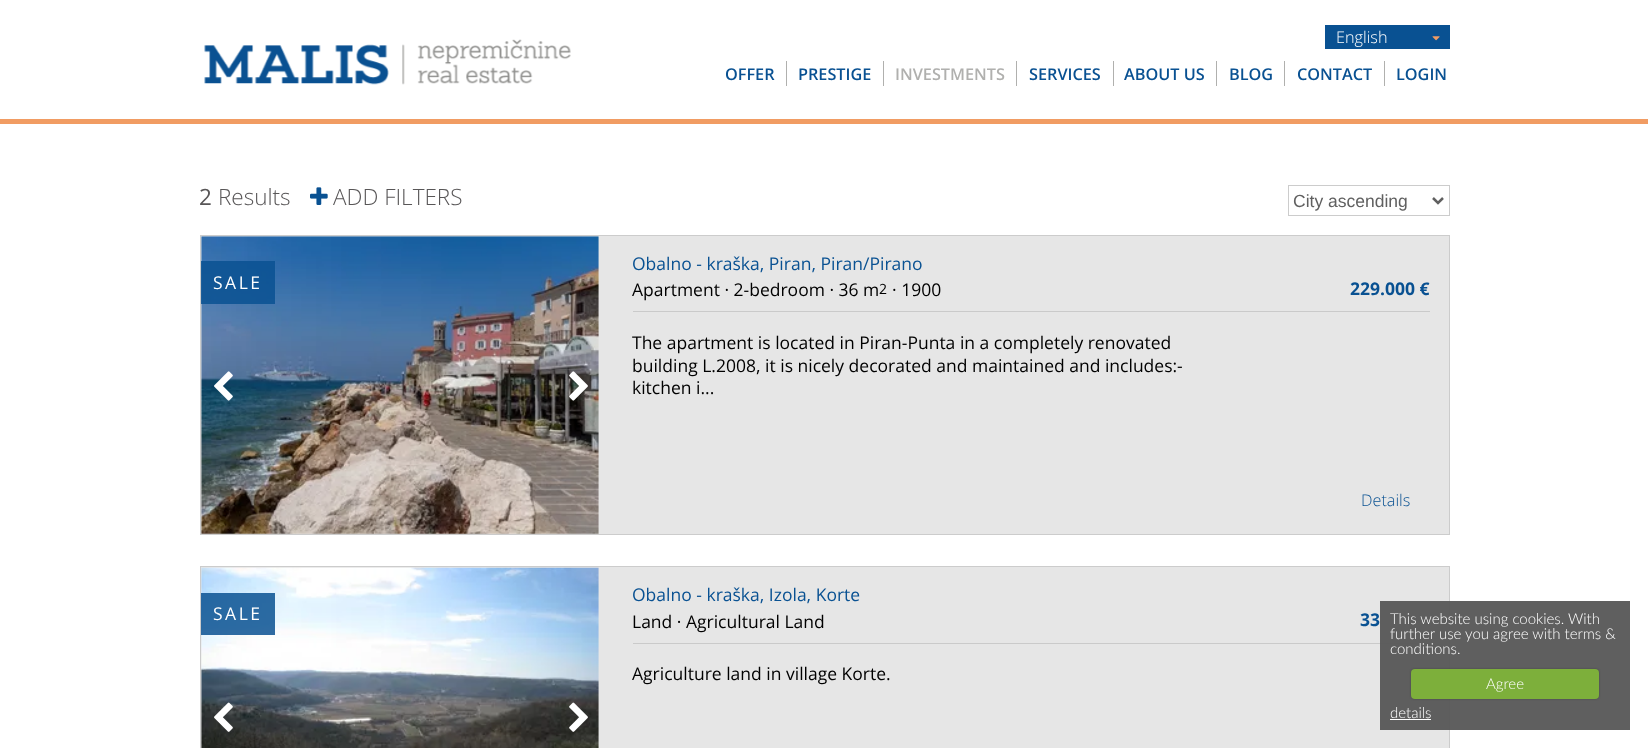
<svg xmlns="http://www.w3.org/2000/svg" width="1648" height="748">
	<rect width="100%" height="100%" fill="#FFFFFF" />
	<rect x="0" y="119" width="1648" height="5" fill="#F19C63" />
	<image x="204" y="39" width="367" height="46" href="assets/img1.png" />
	<rect x="1325" y="25" width="125" height="24" fill="#095192" />
	<text x="1336" y="43" font-family="Open Sans" font-size="16.25" font-weight="300" fill="#FFFFFF">English</text>
	<image x="1432" y="36" width="8" height="5" href="assets/img2.png" />
	<rect x="786" y="61" width="1" height="25" fill="#B0B0AE" />
	<text x="725" y="80" font-family="Open Sans" font-size="16.25" font-weight="600" fill="#095192">OFFER</text>
	<rect x="883" y="61" width="1" height="25" fill="#B0B0AE" />
	<text x="798" y="80" font-family="Open Sans" font-size="16.25" font-weight="600" fill="#095192">PRESTIGE</text>
	<rect x="1016" y="61" width="1" height="25" fill="#B0B0AE" />
	<text x="895" y="80" font-family="Open Sans" font-size="16.25" font-weight="600" fill="#B0B0AE">INVESTMENTS</text>
	<rect x="1113" y="61" width="1" height="25" fill="#B0B0AE" />
	<text x="1029" y="80" font-family="Open Sans" font-size="16.25" font-weight="600" fill="#095192">SERVICES</text>
	<rect x="1216" y="61" width="1" height="25" fill="#B0B0AE" />
	<text x="1124" y="80" font-family="Open Sans" font-size="16.25" font-weight="600" fill="#095192">ABOUT US</text>
	<rect x="1284" y="61" width="1" height="25" fill="#B0B0AE" />
	<text x="1229" y="80" font-family="Open Sans" font-size="16.25" font-weight="600" fill="#095192">BLOG</text>
	<rect x="1384" y="61" width="1" height="25" fill="#B0B0AE" />
	<g font-family="Open Sans" font-size="16.25" font-weight="600" fill="#095192">
		<text x="1297" y="80">CONTACT</text>
		<text x="1396" y="80">LOGIN</text>
	</g>
	<text x="199" y="205" font-family="Open Sans" font-size="22.5" fill="#585657">2</text>
	<text x="218" y="205" font-family="Open Sans" font-size="22.5" font-weight="300" fill="#585657">Results</text>
	<image x="310" y="187" width="18" height="18" href="assets/img3.png" />
	<text x="333" y="205" font-family="Open Sans" font-size="22.5" font-weight="300" fill="#585657">ADD FILTERS</text>
	<rect x="1288.5" y="185.5" width="161" height="30" fill="none" stroke="#CCCCCC" />
	<path d="M1433 198L1438 203L1443 198" fill="none" stroke="#606060" stroke-width="2.5" />
	<text x="1293" y="207" font-family="Liberation Sans" font-size="17.5" fill="#606060">City ascending</text>
	<rect x="200.5" y="235.5" width="1249" height="299" fill="#E6E6E6" stroke="#CCCCCC" />
	<image x="201" y="236" width="398" height="298" href="assets/img4.png" />
	<rect x="201" y="261" width="74" height="43" fill="#095192" fill-opacity="0.85" />
	<text x="213" y="289" font-family="Open Sans" font-size="17.5" letter-spacing="2.5" fill="#FFFFFF">SALE</text>
	<text x="632" y="270" font-family="Open Sans" font-size="17.5" fill="#095192">Obalno - kraška, Piran, Piran/Pirano</text>
	<rect x="633" y="311" width="797" height="1" fill="#CACACA" />
	<text x="632" y="296" font-family="Open Sans" font-size="17.5" fill="#000000">Apartment · 2-bedroom · 36 m</text>
	<text x="879" y="294" font-family="Open Sans" font-size="14" fill="#000000">2</text>
	<text x="892" y="296" font-family="Open Sans" font-size="17.5" fill="#000000">· 1900</text>
	<text x="1350" y="295" font-family="Open Sans" font-size="17.5" font-weight="700" fill="#095192">229.000 €</text>
	<g font-family="Open Sans" font-size="17.5" fill="#000000">
		<text x="632" y="349">The apartment is located in Piran-Punta in a completely renovated</text>
		<text x="632" y="372">building L.2008, it is nicely decorated and maintained and includes:-</text>
		<text x="632" y="394">kitchen i...</text>
	</g>
	<text x="1361" y="506" font-family="Open Sans" font-size="16.25" font-weight="300" fill="#095192">Details</text>
	<image x="214" y="371" width="19" height="30" href="assets/img5.png" />
	<image x="569" y="371" width="19" height="30" href="assets/img6.png" />
	<rect x="200.5" y="566.5" width="1249" height="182" fill="#E6E6E6" stroke="#CCCCCC" />
	<image x="201" y="567" width="398" height="181" href="assets/img7.png" />
	<rect x="201" y="593" width="74" height="42" fill="#095192" fill-opacity="0.85" />
	<text x="213" y="620" font-family="Open Sans" font-size="17.5" letter-spacing="2.5" fill="#FFFFFF">SALE</text>
	<text x="632" y="601" font-family="Open Sans" font-size="17.5" fill="#095192">Obalno - kraška, Izola, Korte</text>
	<rect x="633" y="643" width="797" height="1" fill="#CACACA" />
	<text x="632" y="628" font-family="Open Sans" font-size="17.5" fill="#000000">Land · Agricultural Land</text>
	<text x="1360" y="626" font-family="Open Sans" font-size="17.5" font-weight="700" fill="#095192">33</text>
	<text x="632" y="680" font-family="Open Sans" font-size="17.5" fill="#000000">Agriculture land in village Korte.</text>
	<image x="214" y="702" width="19" height="30" href="assets/img8.png" />
	<image x="569" y="702" width="19" height="30" href="assets/img9.png" />
	<rect x="1380" y="601" width="250" height="129" fill="#565656" fill-opacity="0.95" />
	<g font-family="Lato" font-size="15" font-weight="300" fill="#FFFFFF">
		<text x="1390" y="624">This website using cookies. With</text>
		<text x="1390" y="639">further use you agree with terms &amp;</text>
		<text x="1390" y="654">conditions.</text>
	</g>
	<rect x="1411" y="669" width="188" height="30" rx="4" fill="#000000" fill-opacity="0.25" filter="blur(1px)" />
	<rect x="1411" y="669" width="188" height="30" rx="4" fill="#7DAF3B" />
	<g font-family="Lato" font-size="15" font-weight="300" fill="#FFFFFF">
		<text x="1486" y="689">Agree</text>
		<text x="1390" y="718">details</text>
	</g>
	<rect x="1390" y="719" width="41" height="1" fill="#FFFFFF" />
</svg>
